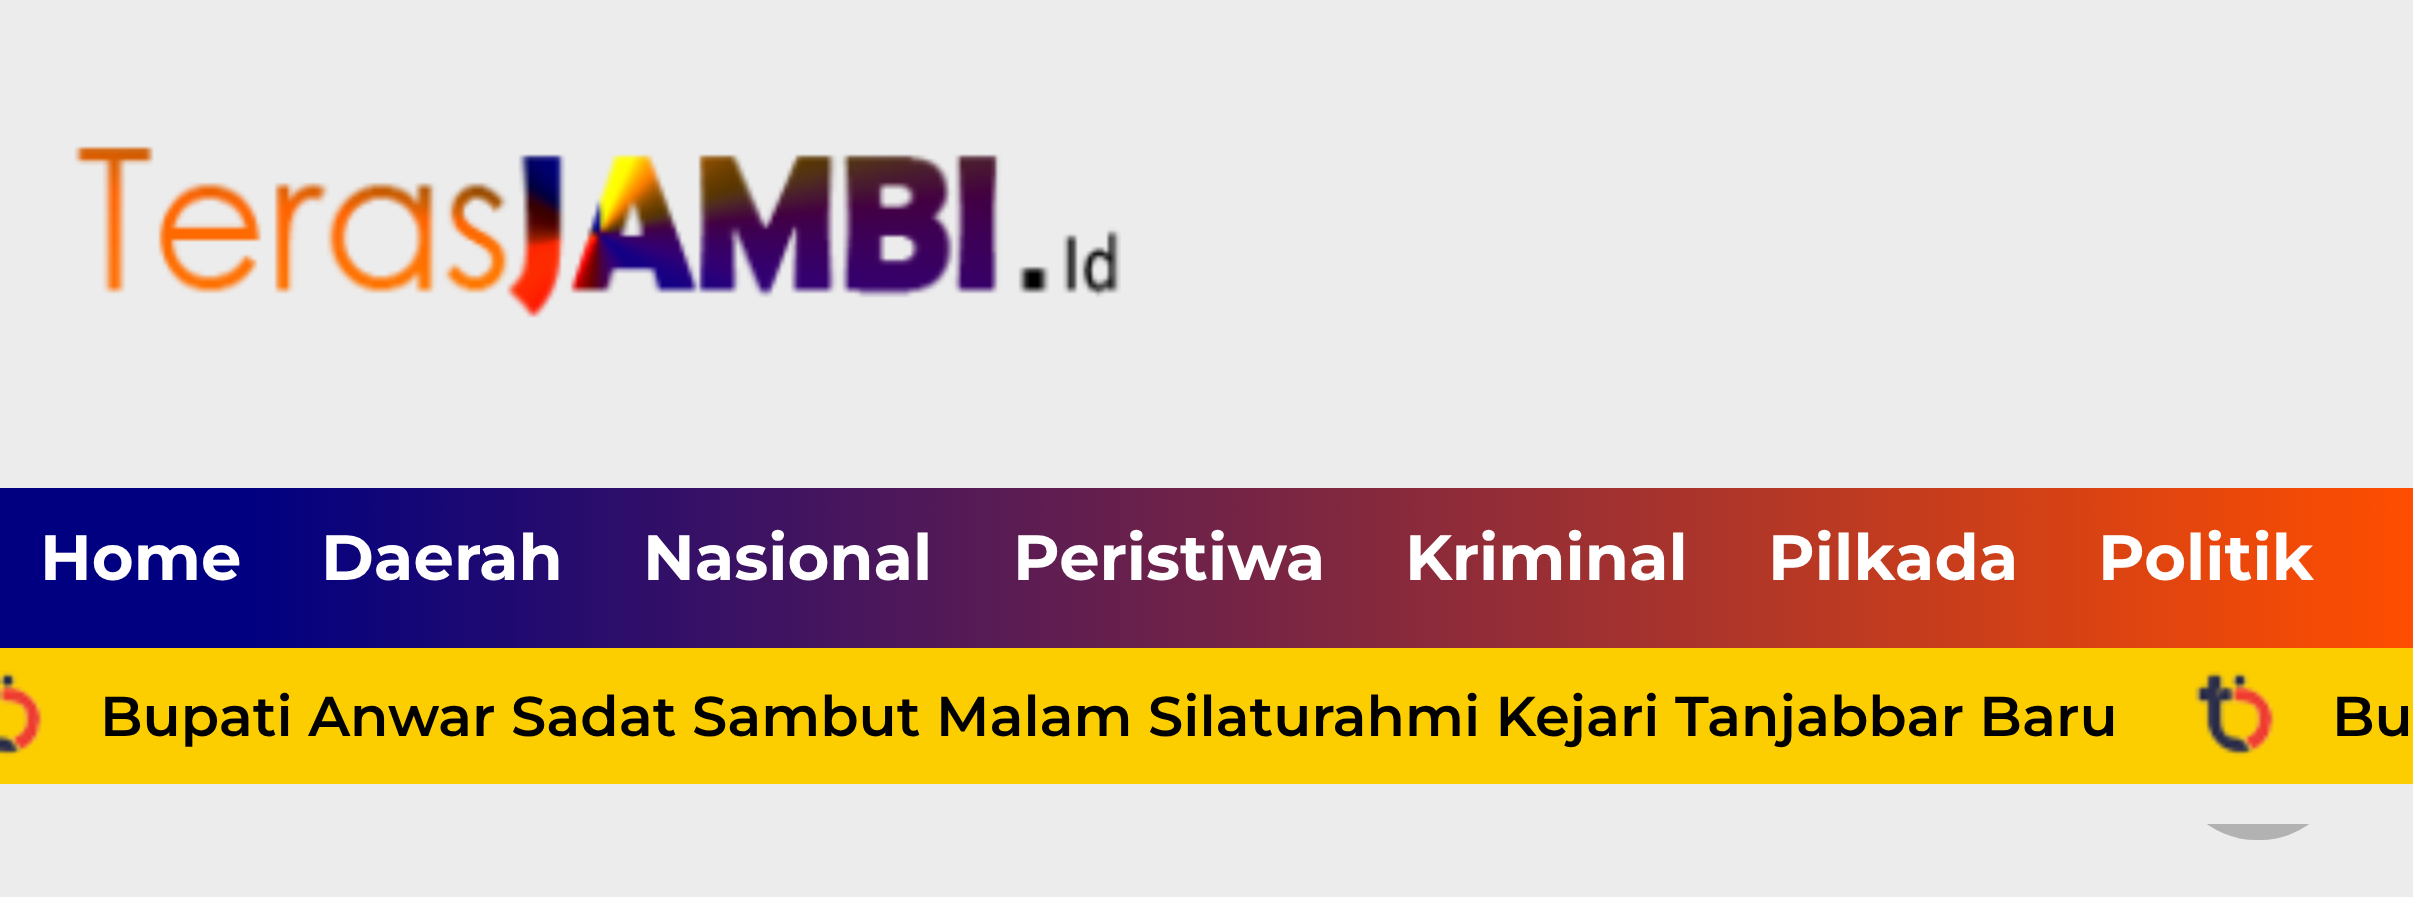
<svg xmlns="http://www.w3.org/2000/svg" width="2413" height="897">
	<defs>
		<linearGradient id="g1" gradientUnits="userSpaceOnUse" x1="0" y1="568" x2="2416" y2="568"><stop offset="0.1" stop-color="#000081" /><stop offset="1" stop-color="#FF4E00" /></linearGradient>
	</defs>
	<rect width="100%" height="100%" fill="#ECECEC" />
	<rect x="2172" y="672" width="172" height="168" rx="84" fill="#B2B2B2" />
	<rect x="2172" y="672" width="172" height="152" fill="#ECECEC" />
	<image x="74" y="146" width="1047" height="172" href="assets/img1.png" />
	<rect x="0" y="488" width="2413" height="160" fill="url(#g1)" />
	<g font-family="Montserrat" font-size="64" font-weight="700" fill="#FFFFFF">
		<text x="40" y="580">Home</text>
		<text x="321" y="580">Daerah</text>
		<text x="643" y="580">Nasional</text>
		<text x="1013" y="580">Peristiwa</text>
		<text x="1405" y="580">Kriminal</text>
		<text x="1768" y="580">Pilkada</text>
		<text x="2098" y="580">Politik</text>
	</g>
	<rect x="0" y="648" width="2413" height="136" fill="#FCCE00" />
	<image x="0" y="671" width="45" height="86" href="assets/img2.png" />
	<text x="100" y="736" font-family="Montserrat" font-size="56" font-weight="600" fill="#000000">Bupati Anwar Sadat Sambut Malam Silaturahmi Kejari Tanjabbar Baru</text>
	<image x="2194" y="671" width="83" height="86" href="assets/img3.png" />
	<text x="2332" y="736" font-family="Montserrat" font-size="56" font-weight="600" fill="#000000">Bu</text>
</svg>
